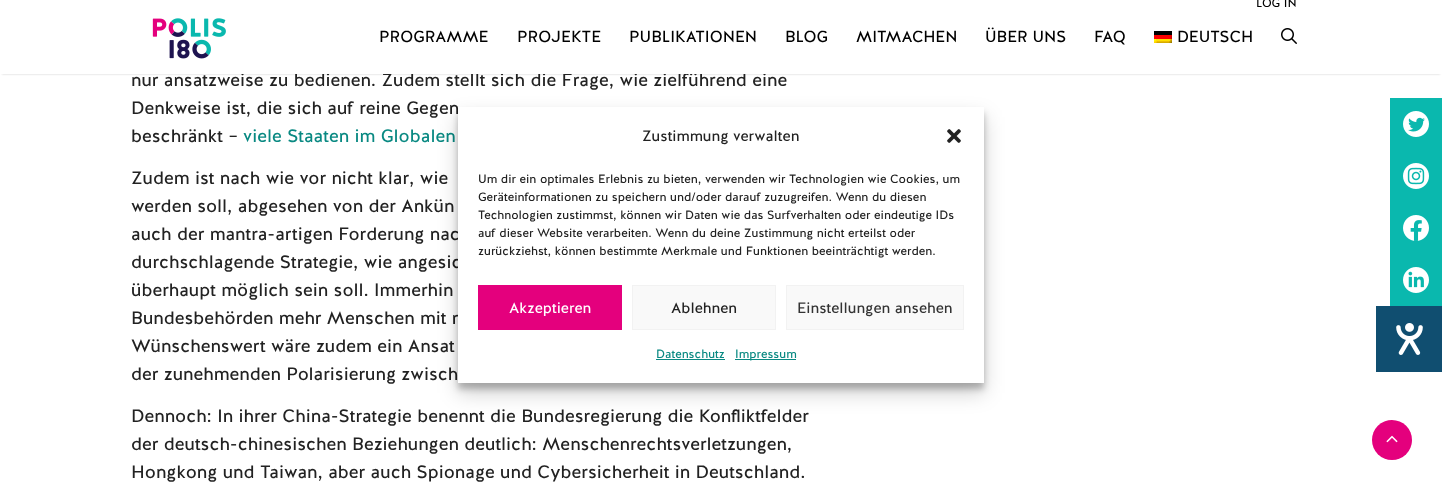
<svg xmlns="http://www.w3.org/2000/svg" width="1442" height="490">
	<rect width="100%" height="100%" fill="#FFFFFF" />
	<rect x="2" y="4" width="1438" height="70" fill="#000000" fill-opacity="0.2" filter="blur(1px)" />
	<text x="131" y="86" font-family="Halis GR" font-size="18" fill="#222222">nur ansatzweise zu bedienen. Zudem stellt sich die Frage, wie zielführend eine</text>
	<rect x="0" y="2" width="1442" height="72" fill="#FFFFFF" />
	<image x="152" y="18" width="74" height="41" href="assets/img1.png" />
	<text x="1256" y="7" font-family="Halis GR" font-size="12" fill="#000000">LOG IN</text>
	<g font-family="Halis GR" font-size="16" fill="#000000">
		<text x="379" y="42">PROGRAMME</text>
		<text x="517" y="42">PROJEKTE</text>
		<text x="629" y="42">PUBLIKATIONEN</text>
		<text x="785" y="42">BLOG</text>
		<text x="856" y="42">MITMACHEN</text>
		<text x="985" y="42">ÜBER UNS</text>
		<text x="1094" y="42">FAQ</text>
	</g>
	<image x="1154" y="31" width="18" height="12" href="assets/img2.png" />
	<text x="1177" y="42" font-family="Halis GR" font-size="16" fill="#000000">DEUTSCH</text>
	<image x="1281" y="28" width="16" height="16" href="assets/img3.png" />
	<g font-family="Halis GR" font-size="18" fill="#222222">
		<text x="131" y="114">Denkweise ist, die sich auf reine Gegen</text>
		<text x="131" y="142">beschränkt –</text>
	</g>
	<text x="243" y="142" font-family="Halis GR" font-size="18" fill="#098982">viele Staaten im Globalen</text>
	<g font-family="Halis GR" font-size="18" fill="#222222">
		<text x="131" y="184">Zudem ist nach wie vor nicht klar, wie</text>
		<text x="131" y="212">werden soll, abgesehen von der Ankün</text>
		<text x="131" y="240">auch der mantra-artigen Forderung nac</text>
		<text x="131" y="268">durchschlagende Strategie, wie angesic</text>
		<text x="131" y="296">überhaupt möglich sein soll. Immerhin</text>
		<text x="131" y="324">Bundesbehörden mehr Menschen mit r</text>
		<text x="131" y="352">Wünschenswert wäre zudem ein Ansat</text>
		<text x="131" y="380">der zunehmenden Polarisierung zwisch</text>
		<text x="131" y="422">Dennoch: In ihrer China-Strategie benennt die Bundesregierung die Konfliktfelder</text>
		<text x="131" y="450">der deutsch-chinesischen Beziehungen deutlich: Menschenrechtsverletzungen,</text>
		<text x="131" y="478">Hongkong und Taiwan, aber auch Spionage und Cybersicherheit in Deutschland.</text>
	</g>
	<image x="1390" y="98" width="52" height="52" href="assets/img4.png" />
	<image x="1390" y="150" width="52" height="52" href="assets/img5.png" />
	<image x="1390" y="202" width="52" height="52" href="assets/img6.png" />
	<image x="1390" y="254" width="52" height="52" href="assets/img7.png" />
	<rect x="458" y="113" width="526" height="276" fill="#000000" fill-opacity="0.23" filter="blur(3px)" />
	<rect x="458" y="117" width="526" height="276" fill="#000000" fill-opacity="0.19" filter="blur(10px)" />
	<rect x="458" y="107" width="526" height="276" fill="#FFFFFF" />
	<text x="642" y="141" font-family="Halis GR" font-size="15" fill="#222222">Zustimmung verwalten</text>
	<image x="947" y="129" width="14" height="14" href="assets/img8.png" />
	<g font-family="Halis GR" font-size="12" fill="#222222">
		<text x="478" y="183">Um dir ein optimales Erlebnis zu bieten, verwenden wir Technologien wie Cookies, um</text>
		<text x="478" y="201">Geräteinformationen zu speichern und/oder darauf zuzugreifen. Wenn du diesen</text>
		<text x="478" y="219">Technologien zustimmst, können wir Daten wie das Surfverhalten oder eindeutige IDs</text>
		<text x="478" y="237">auf dieser Website verarbeiten. Wenn du deine Zustimmung nicht erteilst oder</text>
		<text x="478" y="255">zurückziehst, können bestimmte Merkmale und Funktionen beeinträchtigt werden.</text>
	</g>
	<rect x="478" y="285" width="144" height="45" fill="#E4007D" />
	<text x="509" y="313" font-family="Halis GR" font-size="15" fill="#FFFFFF">Akzeptieren</text>
	<rect x="632.5" y="285.5" width="143" height="44" fill="#F9F9F9" stroke="#F2F2F2" />
	<text x="671" y="313" font-family="Halis GR" font-size="15" fill="#222222">Ablehnen</text>
	<rect x="786.5" y="285.5" width="177" height="44" fill="#F9F9F9" stroke="#F2F2F2" />
	<text x="797" y="313" font-family="Halis GR" font-size="15" fill="#333333">Einstellungen ansehen</text>
	<text x="656" y="358" font-family="Halis GR" font-size="12" fill="#098982">Datenschutz</text>
	<rect x="656" y="359" width="69" height="1" fill="#098982" />
	<rect x="735" y="359" width="61" height="1" fill="#098982" />
	<text x="735" y="358" font-family="Halis GR" font-size="12" fill="#098982">Impressum</text>
	<rect x="1376" y="306" width="66" height="66" fill="#104E70" />
	<image x="1396" y="323" width="27" height="32" href="assets/img9.png" />
	<circle cx="1392" cy="440" r="20" fill="#E4007D" />
	<image x="1386" y="435" width="12" height="8" href="assets/img10.png" />
</svg>
